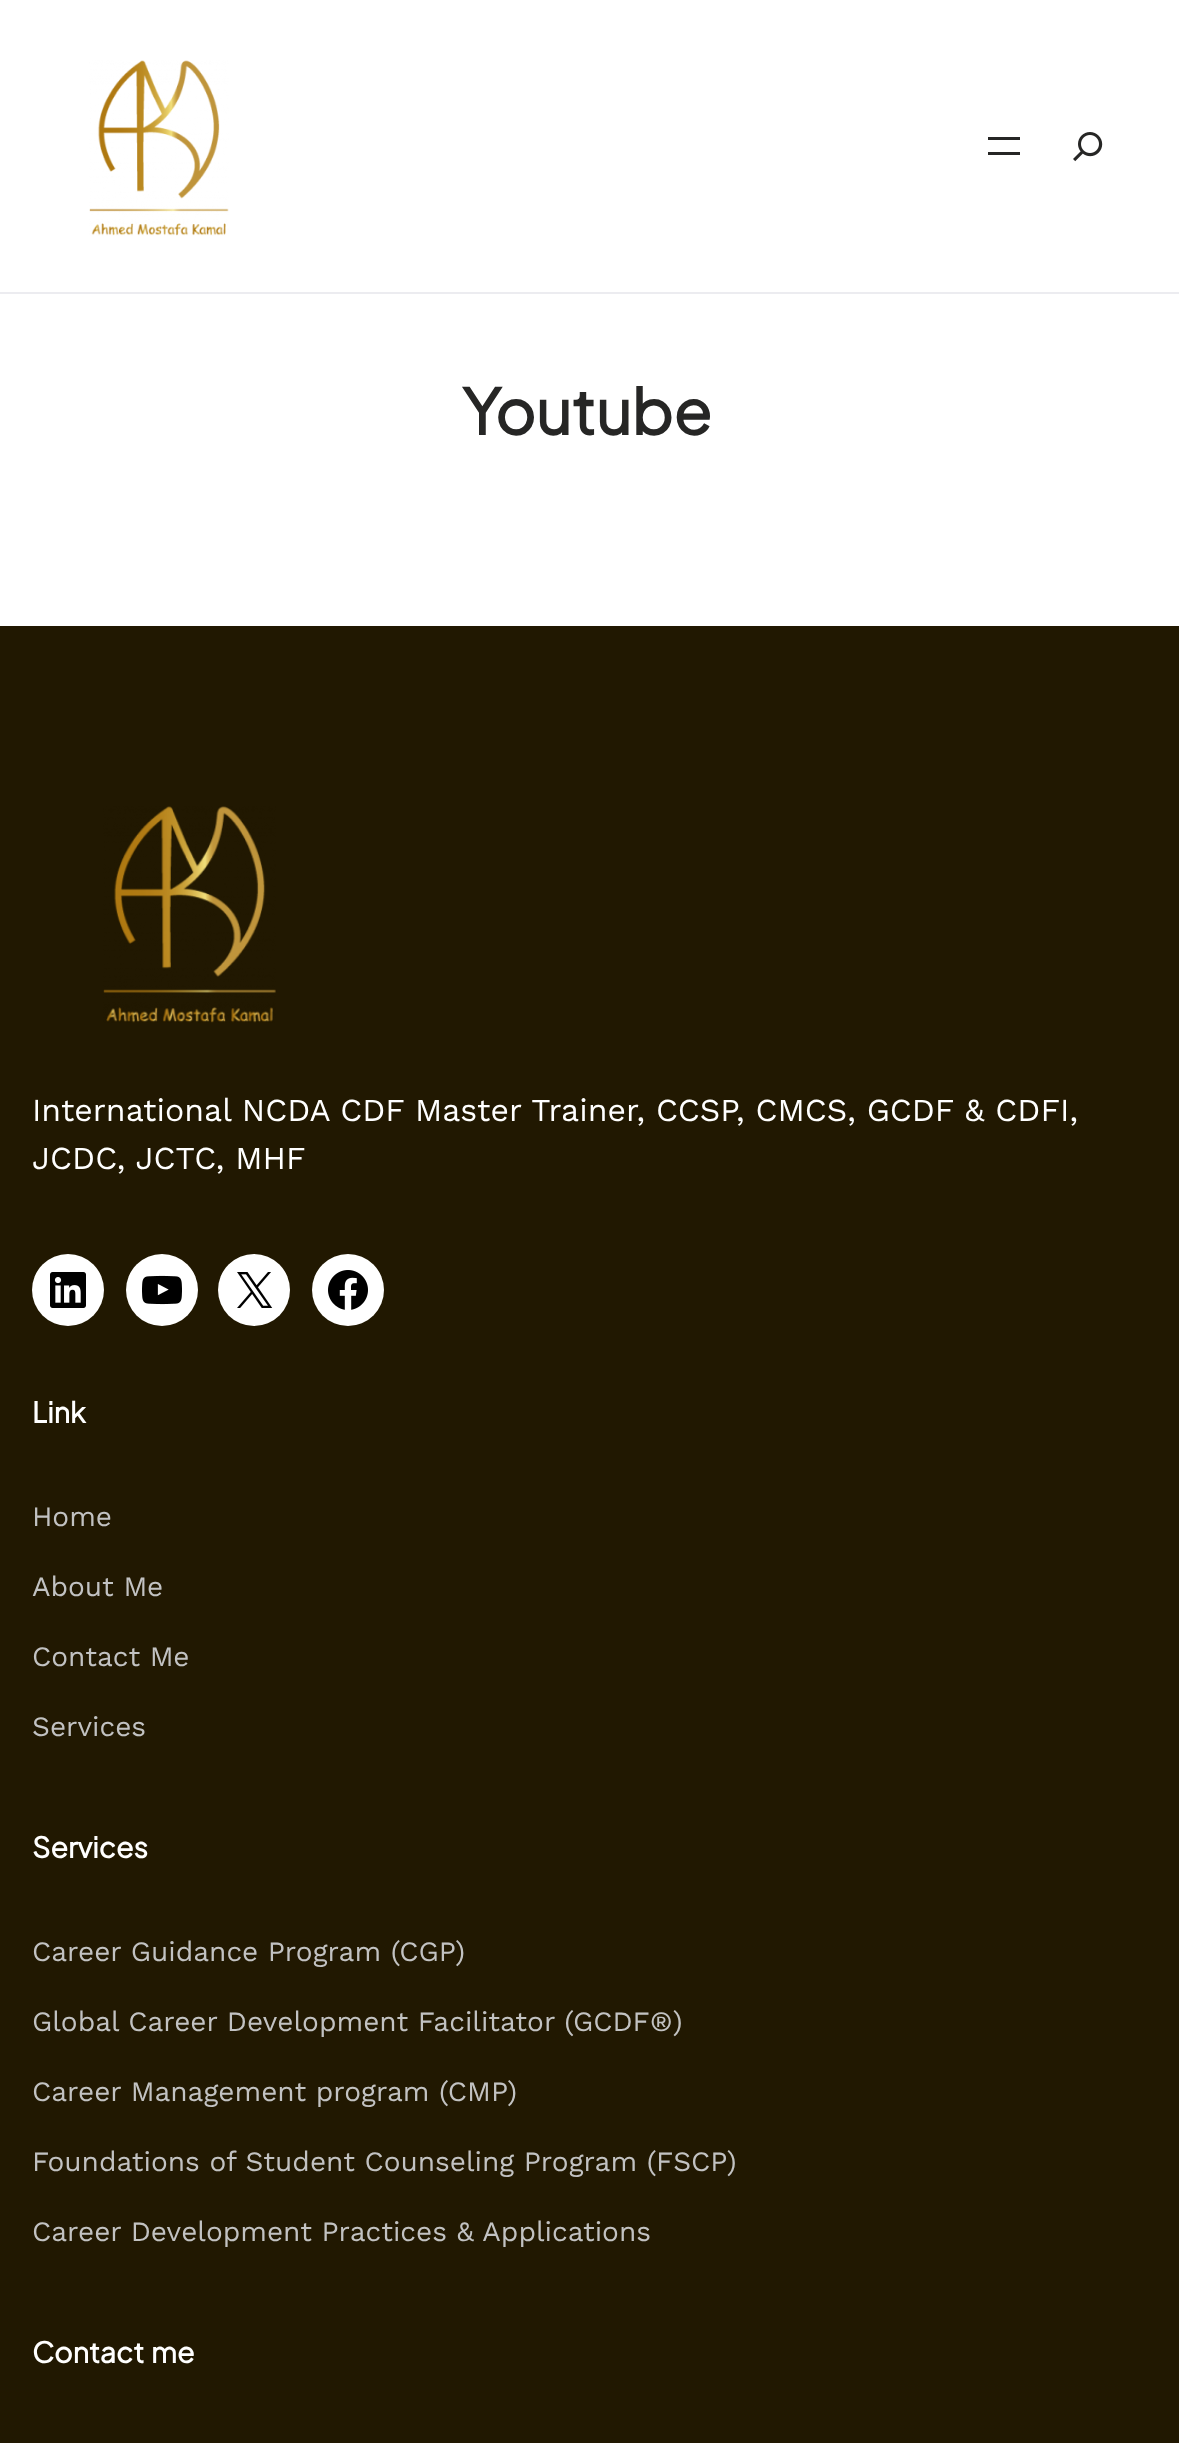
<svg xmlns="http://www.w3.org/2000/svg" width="1179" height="2443">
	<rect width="100%" height="100%" fill="#FFFFFF" />
	<rect x="0" y="292" width="1179" height="2" fill="#ECECF0" />
	<image x="89" y="60" width="140" height="176" href="assets/img1.png" />
	<rect x="988" y="137" width="32" height="3" fill="#262625" />
	<rect x="988" y="152" width="32" height="3" fill="#262625" />
	<image x="1073" y="132" width="30" height="30" href="assets/img2.png" />
	<text x="462" y="435" font-family="Plus Jakarta Sans" font-size="62.5" font-weight="700" fill="#262625">Youtube</text>
	<rect x="0" y="626" width="1179" height="1817" fill="#211801" />
	<image x="103" y="806" width="173" height="217" href="assets/img3.png" />
	<g font-family="Work Sans" font-size="32" fill="#FFFFFF">
		<text x="32" y="1121">International NCDA CDF Master Trainer, CCSP, CMCS, GCDF &amp; CDFI,</text>
		<text x="32" y="1169">JCDC, JCTC, MHF</text>
	</g>
	<circle cx="68" cy="1290" r="36" fill="#FFFFFF" />
	<image x="50" y="1272" width="36" height="36" href="assets/img4.png" />
	<circle cx="162" cy="1290" r="36" fill="#FFFFFF" />
	<image x="142" y="1275" width="40" height="30" href="assets/img5.png" />
	<circle cx="254" cy="1290" r="36" fill="#FFFFFF" />
	<image x="237" y="1272" width="36" height="36" href="assets/img6.png" />
	<circle cx="348" cy="1290" r="36" fill="#FFFFFF" />
	<image x="328" y="1270" width="40" height="40" href="assets/img7.png" />
	<text x="32" y="1423" font-family="Plus Jakarta Sans" font-size="28.5" font-weight="700" fill="#FFFFFF">Link</text>
	<g font-family="Work Sans" font-size="28" fill="#C2C2C2">
		<text x="32" y="1526">Home</text>
		<text x="32" y="1596">About Me</text>
		<text x="32" y="1666">Contact Me</text>
		<text x="32" y="1736">Services</text>
	</g>
	<text x="32" y="1858" font-family="Plus Jakarta Sans" font-size="28.5" font-weight="700" fill="#FFFFFF">Services</text>
	<g font-family="Work Sans" font-size="28" fill="#C2C2C2">
		<text x="32" y="1961">Career Guidance Program (CGP)</text>
		<text x="32" y="2031">Global Career Development Facilitator (GCDF®)</text>
		<text x="32" y="2101">Career Management program (CMP)</text>
		<text x="32" y="2171">Foundations of Student Counseling Program (FSCP)</text>
		<text x="32" y="2241">Career Development Practices &amp; Applications</text>
	</g>
	<text x="32" y="2363" word-spacing="2" font-family="Plus Jakarta Sans" font-size="28.5" font-weight="700" fill="#FFFFFF">Contact me</text>
</svg>
